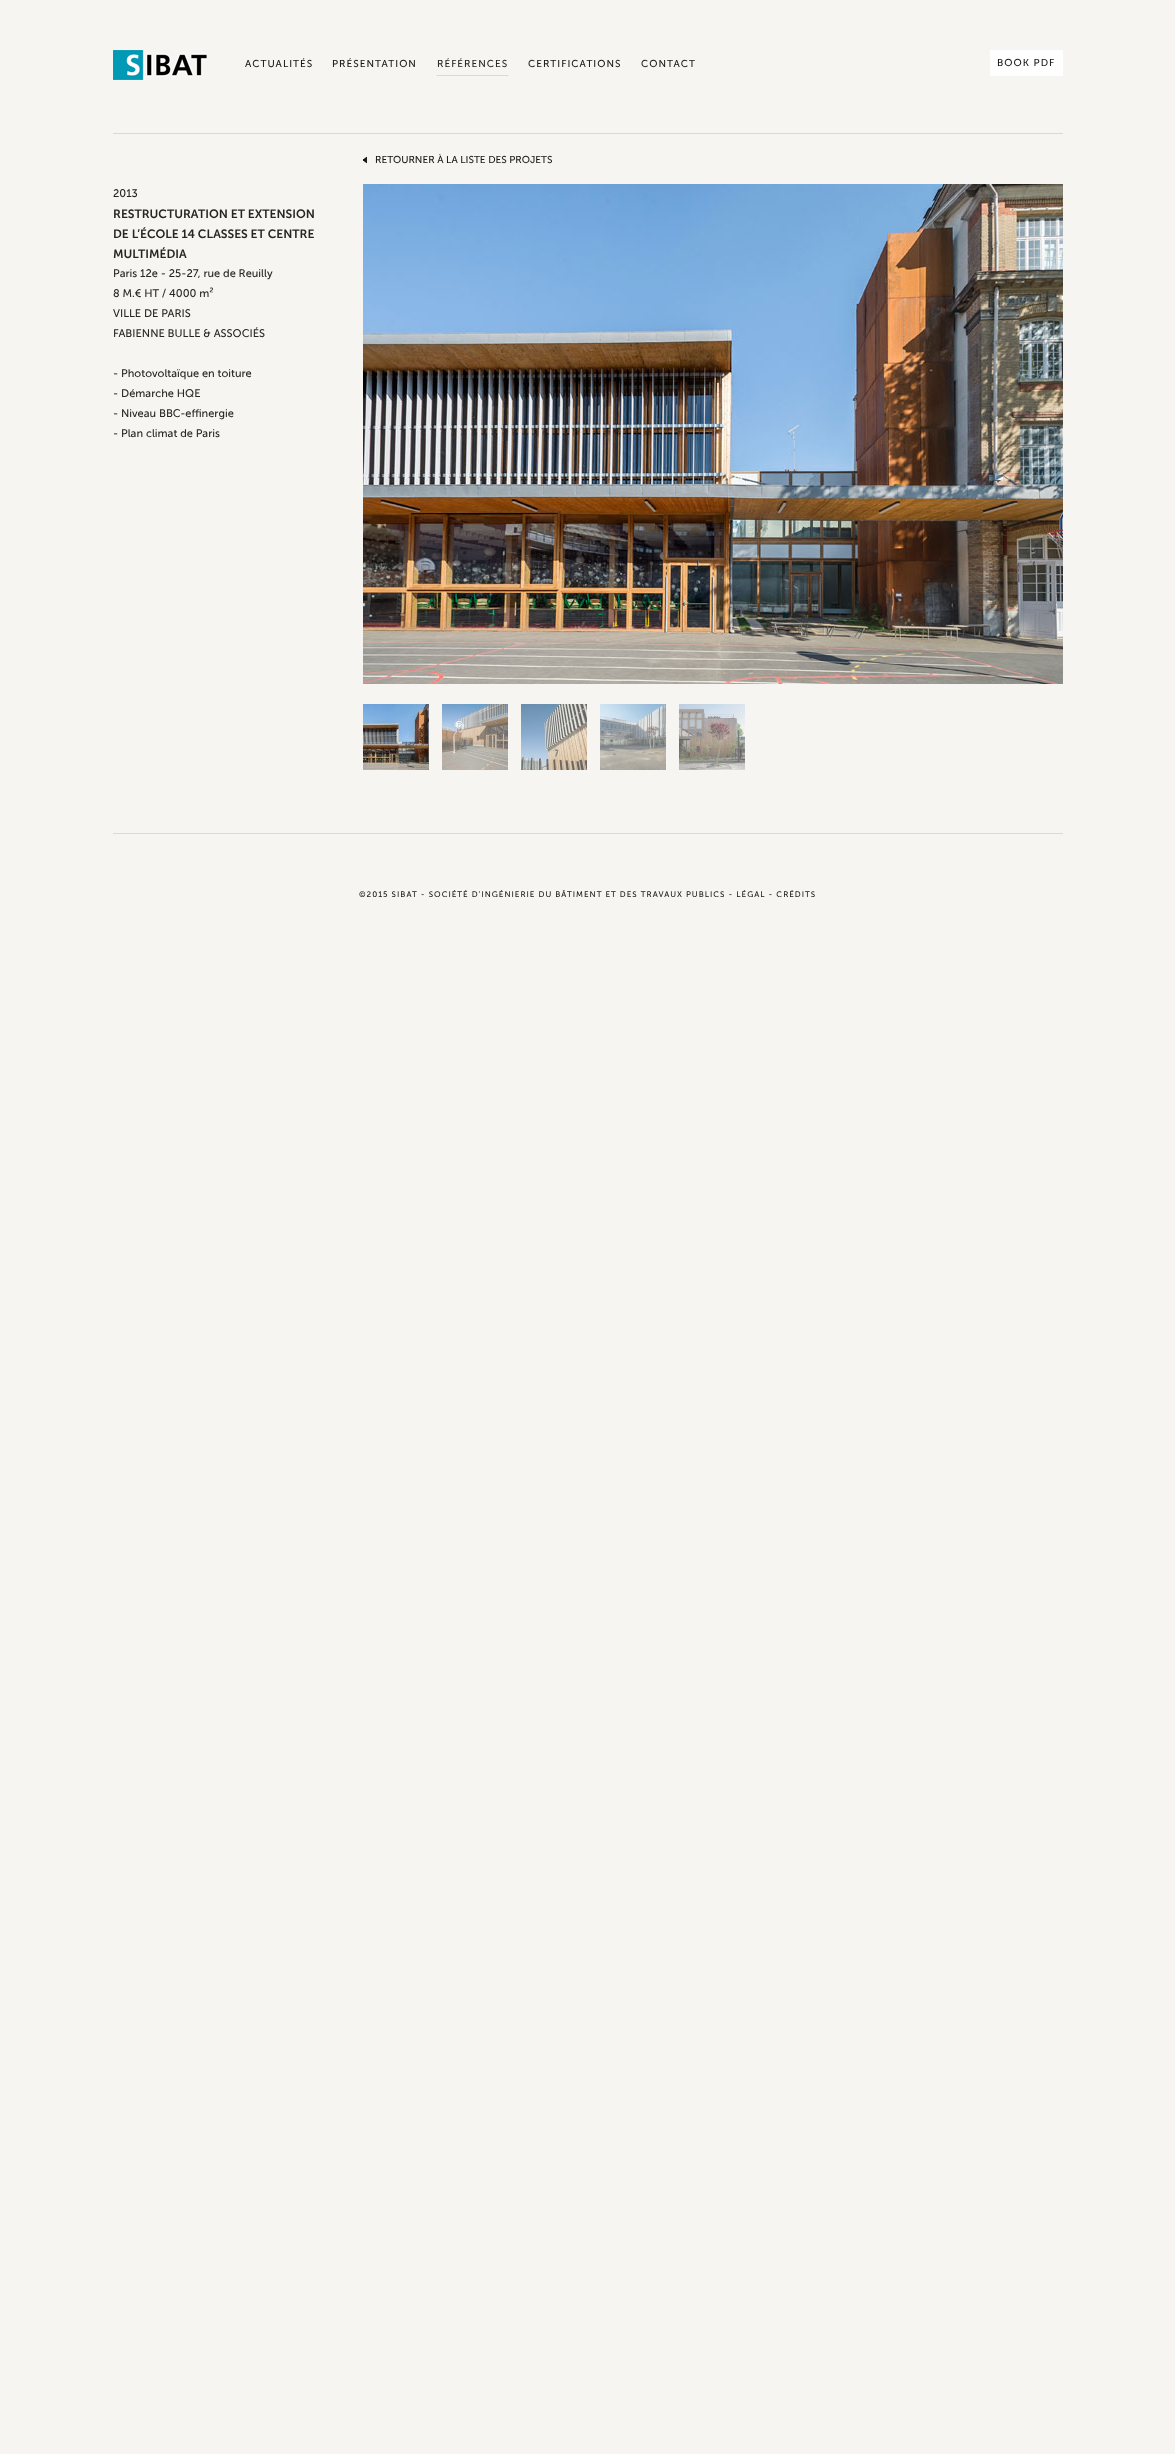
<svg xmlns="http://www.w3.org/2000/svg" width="1175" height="2454">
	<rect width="100%" height="100%" fill="#F6F5F1" />
	<rect x="113" y="133" width="950" height="1" fill="#D9D9D9" />
	<image x="113" y="50" width="94" height="30" href="assets/img1.png" />
	<g font-family="Museo Sans" font-size="10" letter-spacing="1" fill="#191718">
		<text x="245" y="67">ACTUALITÉS</text>
		<text x="332" y="67">PRÉSENTATION</text>
	</g>
	<path d="M509 76H436L437 75H508Z" fill="#D9D9D9" />
	<text x="437" y="67" font-family="Museo Sans" font-size="10" letter-spacing="1" fill="#262626">RÉFÉRENCES</text>
	<g font-family="Museo Sans" font-size="10" letter-spacing="1" fill="#191718">
		<text x="528" y="67">CERTIFICATIONS</text>
		<text x="641" y="67">CONTACT</text>
	</g>
	<rect x="990" y="50" width="73" height="26" fill="#FFFFFF" />
	<text x="997" y="66" font-family="Museo Sans" font-size="10" letter-spacing="1" fill="#191718">BOOK PDF</text>
	<image x="363" y="157" width="4" height="6" href="assets/img2.png" />
	<text x="375" y="163" font-family="Museo Sans" font-size="10" fill="#191718">RETOURNER À LA LISTE DES PROJETS</text>
	<image x="363" y="184" width="700" height="500" href="assets/img3.png" />
	<image x="363" y="704" width="66" height="66" href="assets/img4.png" />
	<image x="442" y="704" width="66" height="66" href="assets/img5.png" />
	<image x="521" y="704" width="66" height="66" href="assets/img6.png" />
	<image x="600" y="704" width="66" height="66" href="assets/img7.png" />
	<image x="679" y="704" width="66" height="66" href="assets/img8.png" />
	<text x="113" y="197" font-family="Museo Sans" font-size="11" fill="#262626">2013</text>
	<g font-family="Museo Sans" font-size="12" font-weight="600" fill="#262626">
		<text x="113" y="218">RESTRUCTURATION ET EXTENSION</text>
		<text x="113" y="238">DE L’ÉCOLE 14 CLASSES ET CENTRE</text>
		<text x="113" y="258">MULTIMÉDIA</text>
	</g>
	<g font-family="Museo Sans" font-size="11" fill="#262626">
		<text x="113" y="277">Paris 12e - 25-27, rue de Reuilly</text>
		<text x="113" y="297">8 M.€ HT / 4000 m²</text>
		<text x="113" y="317">VILLE DE PARIS</text>
		<text x="113" y="337">FABIENNE BULLE &amp; ASSOCIÉS</text>
		<text x="113" y="377">- Photovoltaïque en toiture</text>
		<text x="113" y="397">- Démarche HQE</text>
		<text x="113" y="417">- Niveau BBC-effinergie</text>
		<text x="113" y="437">- Plan climat de Paris</text>
	</g>
	<rect x="113" y="833" width="950" height="1" fill="#D9D9D9" />
	<text x="359" y="897" font-family="Museo Sans" font-size="8" letter-spacing="1" fill="#191718">©2015 SIBAT - SOCIÉTÉ D’INGÉNIERIE DU BÂTIMENT ET DES TRAVAUX PUBLICS - LÉGAL - CRÉDITS</text>
</svg>
